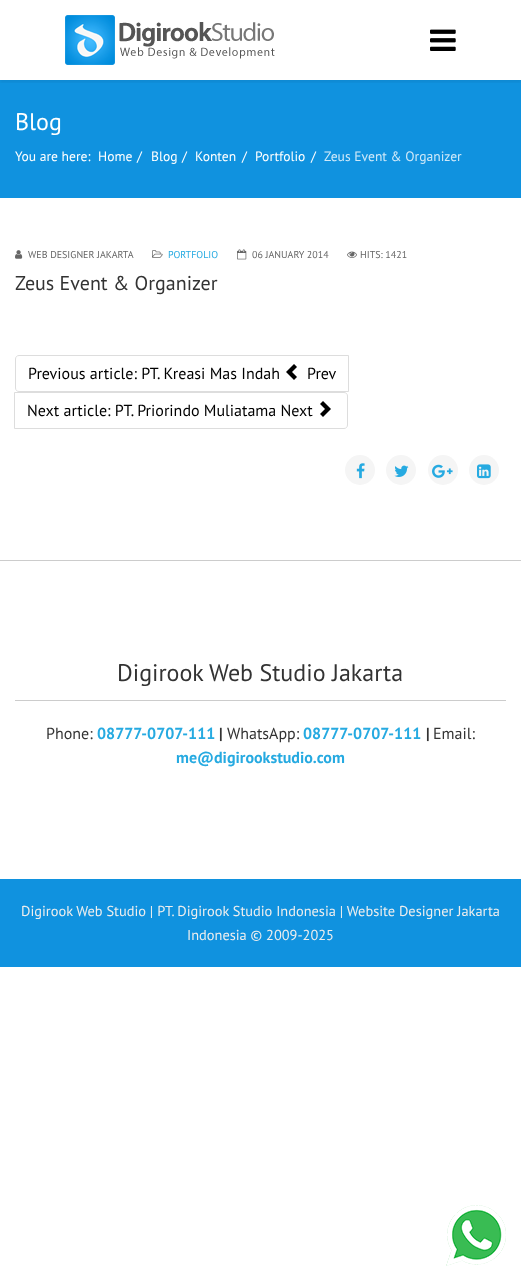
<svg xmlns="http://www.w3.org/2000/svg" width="521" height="1281">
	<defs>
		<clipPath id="clip1"><rect x="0" y="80" width="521" height="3" /></clipPath>
	</defs>
	<rect width="100%" height="100%" fill="#FFFFFF" />
	<rect x="0" y="80" width="521" height="118" fill="#1092DF" />
	<g clip-path="url(#clip1)">
		<rect x="0" y="3" width="521" height="80" fill="#000000" fill-opacity="0.05" filter="blur(1.5px)" />
	</g>
	<image x="65" y="15" width="210" height="50" href="assets/img1.png" />
	<image x="430" y="29" width="26" height="22" href="assets/img2.png" />
	<text x="15" y="130" font-family="PT Sans" font-size="24" fill="#FFFFFF">Blog</text>
	<g font-family="PT Sans" font-size="13.6" fill="#FFFFFF">
		<text x="15" y="161">You are here:</text>
		<text x="98" y="161">Home</text>
		<text x="137" y="161">/</text>
		<text x="151" y="161">Blog</text>
		<text x="182" y="161">/</text>
		<text x="195" y="161">Konten</text>
		<text x="242" y="161">/</text>
		<text x="255" y="161">Portfolio</text>
		<text x="311" y="161">/</text>
	</g>
	<text x="324" y="161" font-family="PT Sans" font-size="13.6" fill="#CFE9F9">Zeus Event &amp; Organizer</text>
	<image x="15" y="250" width="8" height="9" href="assets/img3.png" />
	<text x="28" y="258" font-family="PT Sans" font-size="10" fill="#666666">WEB DESIGNER JAKARTA</text>
	<image x="152" y="250" width="11" height="8" href="assets/img4.png" />
	<text x="168" y="258" font-family="PT Sans" font-size="10" fill="#26AAE1">PORTFOLIO</text>
	<image x="237" y="249" width="10" height="11" href="assets/img5.png" />
	<text x="252" y="258" font-family="PT Sans" font-size="10" fill="#666666">06 JANUARY 2014</text>
	<image x="347" y="251" width="10" height="7" href="assets/img6.png" />
	<text x="360" y="258" font-family="PT Sans" font-size="10" fill="#666666">HITS: 1421</text>
	<text x="15" y="290" font-family="PT Sans" font-size="20" fill="#333333">Zeus Event &amp; Organizer</text>
	<path d="M19 355.5H348.5V391.5H19C17 391.5 15.5 390 15.5 388V359C15.5 357 17 355.5 19 355.5Z" fill="none" stroke="#DDDDDD" />
	<text x="28" y="379" font-family="PT Sans" font-size="16" fill="#000000">Previous article: PT. Kreasi Mas Indah</text>
	<image x="286" y="364" width="11" height="16" href="assets/img7.png" />
	<text x="307" y="379" font-family="PT Sans" font-size="16" fill="#000000">Prev</text>
	<path d="M14.5 392.5H344C346 392.5 347.5 394 347.5 396V425C347.5 427 346 428.5 344 428.5H14.5Z" fill="none" stroke="#DDDDDD" />
	<text x="27" y="416" font-family="PT Sans" font-size="16" fill="#000000">Next article: PT. Priorindo Muliatama Next</text>
	<image x="320" y="401" width="11" height="16" href="assets/img8.png" />
	<circle cx="360" cy="470" r="15" fill="#F5F5F5" />
	<image x="356" y="463" width="9" height="16" href="assets/img9.png" />
	<circle cx="401" cy="470" r="15" fill="#F5F5F5" />
	<image x="394" y="465" width="15" height="12" href="assets/img10.png" />
	<circle cx="443" cy="470" r="15" fill="#F5F5F5" />
	<image x="432" y="464" width="21" height="14" href="assets/img11.png" />
	<circle cx="484" cy="470" r="15" fill="#F5F5F5" />
	<image x="477" y="464" width="14" height="15" href="assets/img12.png" />
	<rect x="0" y="560" width="521" height="1" fill="#CCCCCC" />
	<rect x="15" y="700" width="491" height="1" fill="#CCCCCC" />
	<text x="117" y="681" font-family="PT Sans" font-size="24" fill="#333333">Digirook Web Studio Jakarta</text>
	<text x="46" y="739" font-family="PT Sans" font-size="16" fill="#333333">Phone:</text>
	<text x="97" y="739" font-family="PT Sans" font-size="16" font-weight="700" fill="#26AAE1">08777-0707-111</text>
	<text x="219" y="739" font-family="PT Sans" font-size="16" font-weight="700" fill="#333333">|</text>
	<text x="227" y="739" font-family="PT Sans" font-size="16" fill="#333333">WhatsApp:</text>
	<text x="303" y="739" font-family="PT Sans" font-size="16" font-weight="700" fill="#26AAE1">08777-0707-111</text>
	<text x="426" y="739" font-family="PT Sans" font-size="16" font-weight="700" fill="#333333">|</text>
	<text x="433" y="739" font-family="PT Sans" font-size="16" fill="#333333">Email:</text>
	<text x="176" y="763" font-family="PT Sans" font-size="16" font-weight="700" fill="#26AAE1">me@digirookstudio.com</text>
	<rect x="0" y="879" width="521" height="88" fill="#1092DF" />
	<g font-family="PT Sans" font-size="14.4" fill="#EEEEEE">
		<text x="21" y="916">Digirook Web Studio | PT. Digirook Studio Indonesia | Website Designer Jakarta</text>
		<text x="187" y="940">Indonesia © 2009-2025</text>
	</g>
	<image x="446" y="1205" width="60" height="61" href="assets/img13.png" />
</svg>
